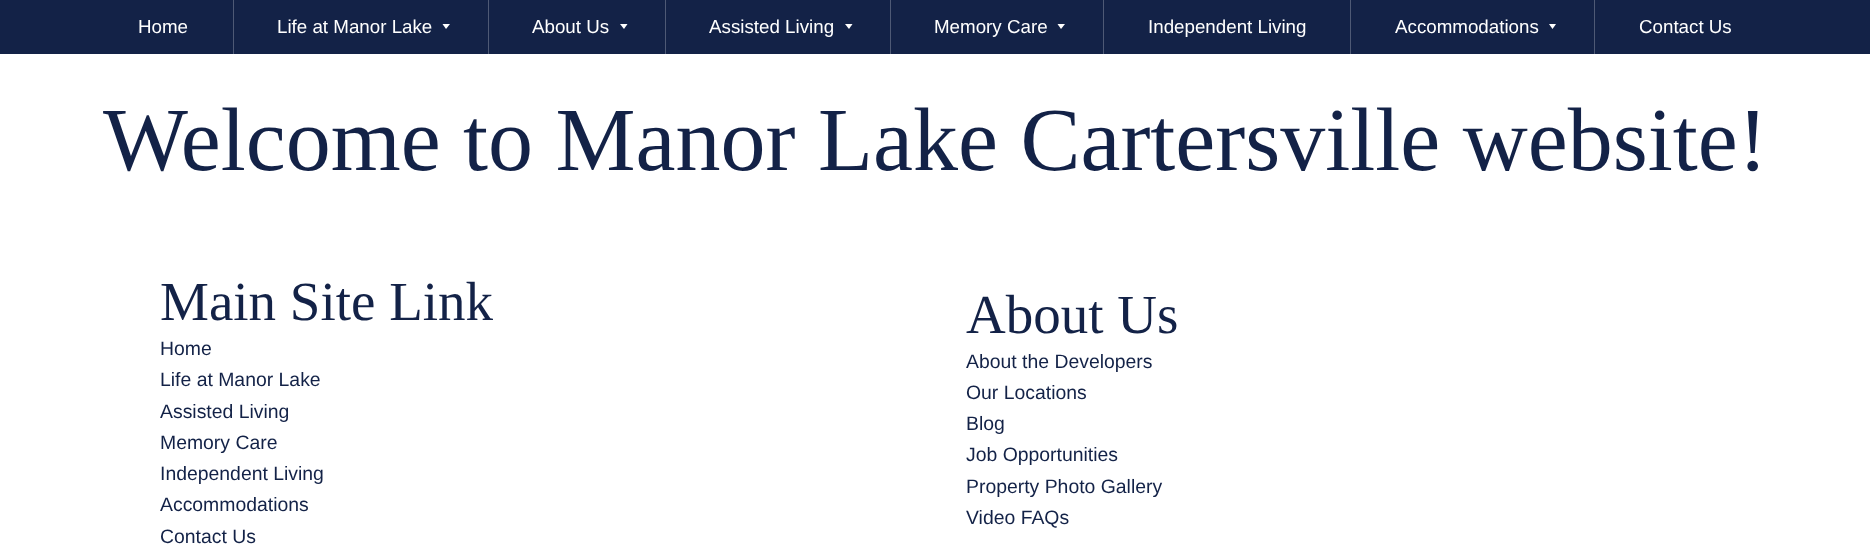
<svg xmlns="http://www.w3.org/2000/svg" width="1870" height="544">
	<rect width="100%" height="100%" fill="#FFFFFF" />
	<rect x="0" y="0" width="1870" height="54" fill="#132247" />
	<rect x="233" y="0" width="1" height="54" fill="#4E5975" />
	<text x="138" y="33" font-family="Liberation Sans" font-size="18.75" fill="#FFFFFF">Home</text>
	<rect x="488" y="0" width="1" height="54" fill="#4E5975" />
	<text x="277" y="33" font-family="Liberation Sans" font-size="18.75" fill="#FFFFFF">Life at Manor Lake</text>
	<path d="M442.5 24H450L446 29Z" fill="#FFFFFF" />
	<rect x="665" y="0" width="1" height="54" fill="#4E5975" />
	<text x="532" y="33" font-family="Liberation Sans" font-size="18.75" fill="#FFFFFF">About Us</text>
	<path d="M620 24H627.5L624 29Z" fill="#FFFFFF" />
	<rect x="890" y="0" width="1" height="54" fill="#4E5975" />
	<text x="709" y="33" font-family="Liberation Sans" font-size="18.75" fill="#FFFFFF">Assisted Living</text>
	<path d="M845 24H852.5L849 29Z" fill="#FFFFFF" />
	<rect x="1103" y="0" width="1" height="54" fill="#4E5975" />
	<text x="934" y="33" font-family="Liberation Sans" font-size="18.75" fill="#FFFFFF">Memory Care</text>
	<path d="M1057.5 24H1065L1061 29Z" fill="#FFFFFF" />
	<rect x="1350" y="0" width="1" height="54" fill="#4E5975" />
	<text x="1148" y="33" font-family="Liberation Sans" font-size="18.75" fill="#FFFFFF">Independent Living</text>
	<rect x="1594" y="0" width="1" height="54" fill="#4E5975" />
	<text x="1395" y="33" font-family="Liberation Sans" font-size="18.75" fill="#FFFFFF">Accommodations</text>
	<path d="M1549 24H1556L1552.5 29Z" fill="#FFFFFF" />
	<text x="1639" y="33" font-family="Liberation Sans" font-size="18.75" fill="#FFFFFF">Contact Us</text>
	<text x="103" y="170" font-family="Liberation Serif" font-size="90" fill="#132247">Welcome to Manor Lake Cartersville website!</text>
	<text x="160" y="320" font-family="Liberation Serif" font-size="55" fill="#132247">Main Site Link</text>
	<g font-family="Liberation Sans" font-size="19.4" fill="#132247">
		<text x="160" y="355">Home</text>
		<text x="160" y="386">Life at Manor Lake</text>
		<text x="160" y="418">Assisted Living</text>
		<text x="160" y="449">Memory Care</text>
		<text x="160" y="480">Independent Living</text>
		<text x="160" y="511">Accommodations</text>
		<text x="160" y="543">Contact Us</text>
	</g>
	<text x="966" y="333" font-family="Liberation Serif" font-size="55" fill="#132247">About Us</text>
	<g font-family="Liberation Sans" font-size="19.4" fill="#132247">
		<text x="966" y="368">About the Developers</text>
		<text x="966" y="399">Our Locations</text>
		<text x="966" y="430">Blog</text>
		<text x="966" y="461">Job Opportunities</text>
		<text x="966" y="493">Property Photo Gallery</text>
		<text x="966" y="524">Video FAQs</text>
	</g>
</svg>
